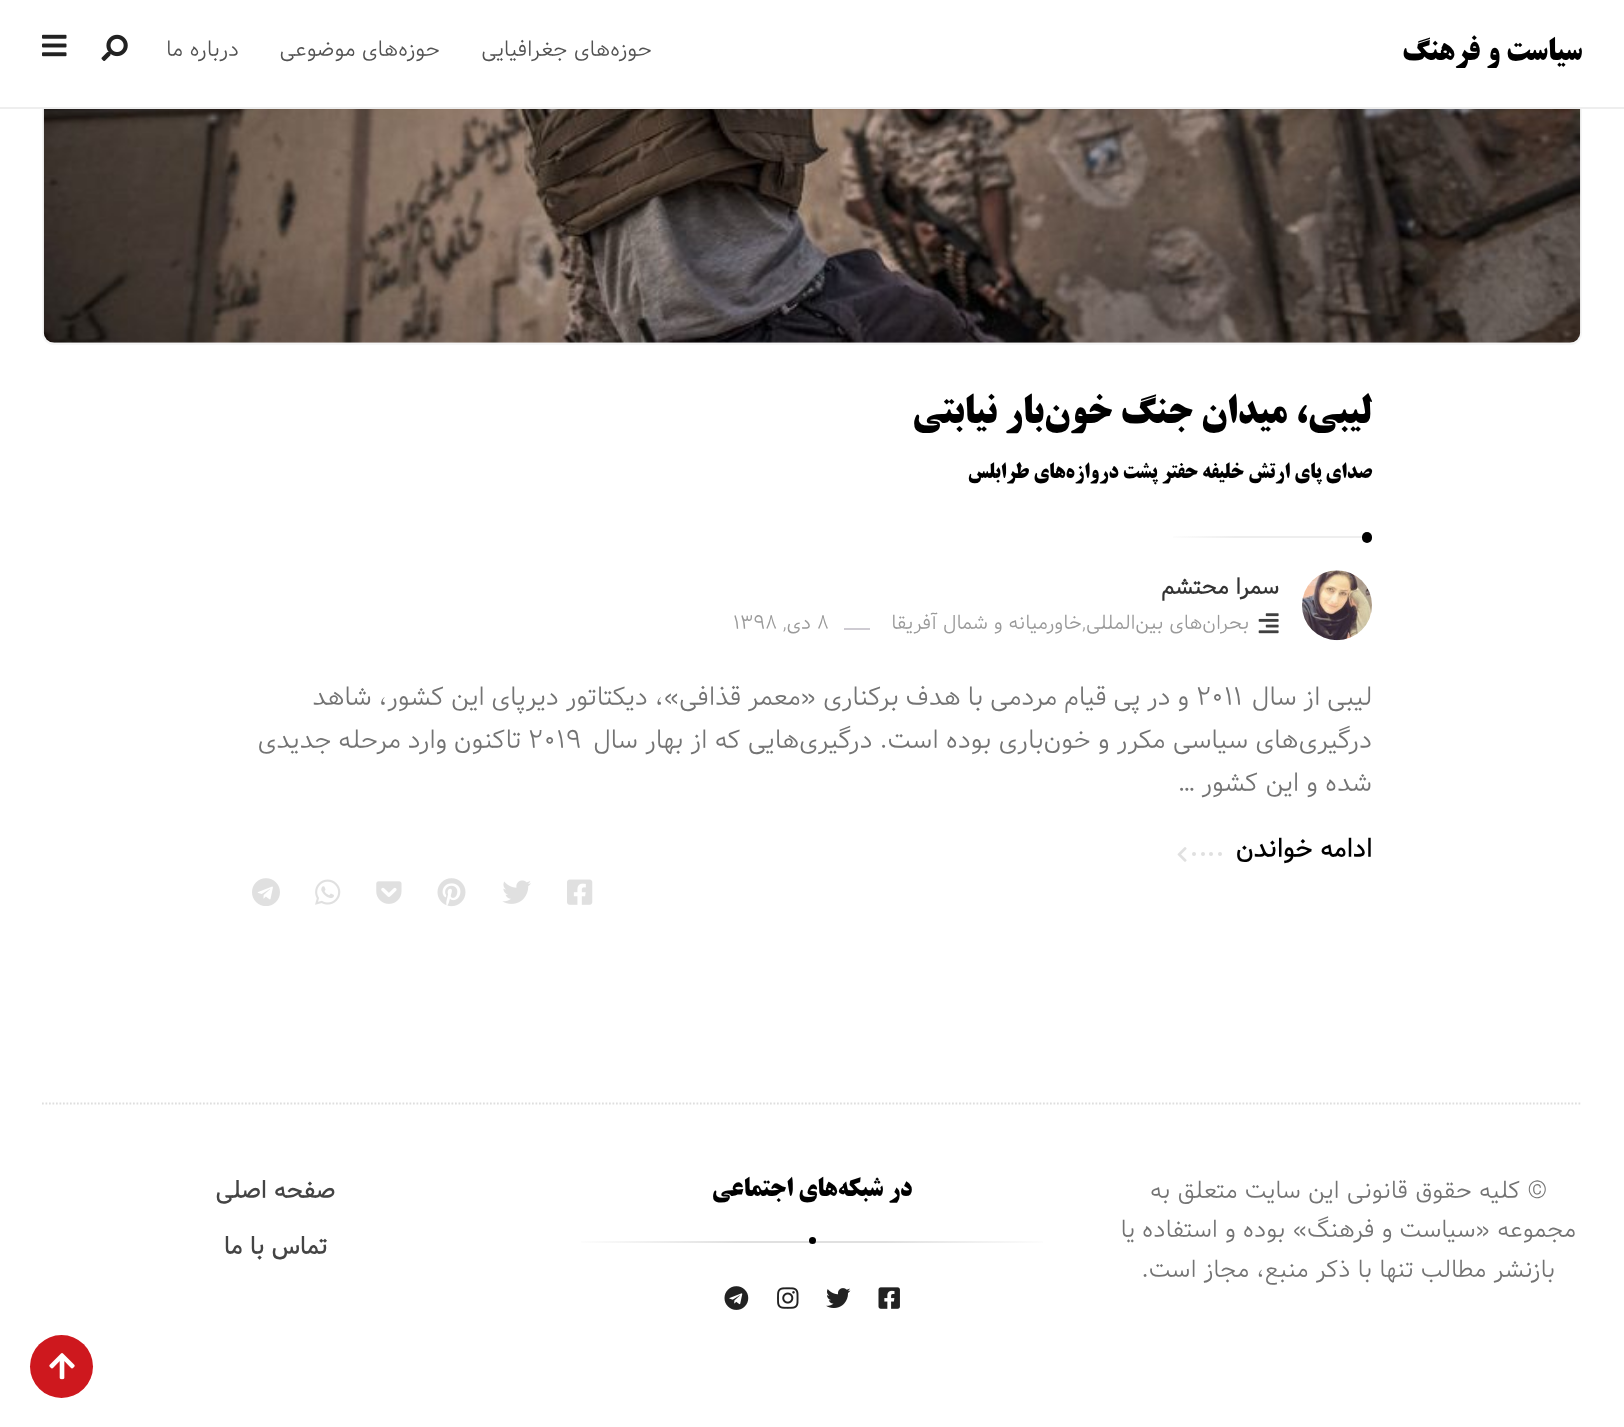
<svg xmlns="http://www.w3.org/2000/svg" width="1624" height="1427">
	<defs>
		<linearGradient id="g1" gradientUnits="userSpaceOnUse" x1="1372" y1="536" x2="1162" y2="536"><stop offset="0" stop-color="#EEEEEE" /><stop offset="0.65" stop-color="#EEEEEE" /><stop offset="1" stop-color="#FFFFFF" /></linearGradient>
		<linearGradient id="g2" gradientUnits="userSpaceOnUse" x1="1057" y1="1241" x2="567" y2="1241"><stop offset="0" stop-color="#FFFFFF" /><stop offset="0.35" stop-color="#E0E0E0" /><stop offset="0.65" stop-color="#E0E0E0" /><stop offset="1" stop-color="#FFFFFF" /></linearGradient>
	</defs>
	<rect width="100%" height="100%" fill="#FFFFFF" />
	<rect x="42" y="-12" width="1540" height="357" rx="12" fill="#F6F6F6" />
	<rect x="42" y="0" width="1540" height="107" fill="#FFFFFF" />
	<rect x="0" y="107" width="1624" height="2" fill="#EEEEEE" />
	<text x="1582" y="60" font-family="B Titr" font-size="31.5" font-weight="700" direction="rtl" fill="#000000">سیاست و فرهنگ</text>
	<g font-family="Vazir" font-size="22" font-weight="300" direction="rtl" fill="#525252">
		<text x="652" y="56">حوزه‌های جغرافیایی</text>
		<text x="440" y="56">حوزه‌های موضوعی</text>
		<text x="239" y="56">درباره ما</text>
	</g>
	<image x="101" y="34" width="27" height="27" href="assets/img1.png" />
	<image x="42" y="34" width="25" height="23" href="assets/img2.png" />
	<image x="43" y="109" width="1538" height="234" href="assets/img3.png" />
	<text x="1372" y="423" font-family="B Titr" font-size="40.25" font-weight="700" direction="rtl" fill="#000000">لیبی، میدان جنگ خون‌بار نیابتی</text>
	<text x="1372" y="478" font-family="B Titr" font-size="21.5" font-weight="700" direction="rtl" fill="#000000">صدای پای ارتش خلیفه حفتر پشت دروازه‌های طرابلس</text>
	<rect x="1173" y="536" width="199" height="2" fill="url(#g1)" />
	<rect x="1362" y="532" width="10" height="11" rx="5" fill="#000000" />
	<image x="1302" y="570" width="70" height="71" href="assets/img4.png" />
	<text x="1279" y="594" font-family="Vazir" font-size="22.75" font-weight="700" direction="rtl" fill="#333333">سمرا محتشم</text>
	<image x="1258" y="613" width="21" height="21" href="assets/img5.png" />
	<text x="1249" y="629" font-family="Vazir" font-size="20.1" font-weight="300" direction="rtl" fill="#999999">بحران‌های بین‌المللی</text>
	<text x="1082" y="629" font-family="Vazir" font-size="20.1" font-weight="300" fill="#999999">,</text>
	<text x="1082" y="629" font-family="Vazir" font-size="20.1" font-weight="300" direction="rtl" fill="#999999">خاورمیانه و شمال آفریقا</text>
	<rect x="844" y="628" width="26" height="2" fill="#CECBD2" />
	<text x="817" y="629" font-family="Vazir" font-size="20.1" font-weight="300" fill="#999999">8</text>
	<text x="811" y="629" font-family="Vazir" font-size="20.1" font-weight="300" direction="rtl" fill="#999999">دی,</text>
	<text x="733" y="629" font-family="Vazir" font-size="20.1" font-weight="300" fill="#999999">1398</text>
	<g font-family="Vazir" font-size="26.25" font-weight="300" letter-spacing="0.18" direction="rtl" fill="#737373">
		<text x="1372" y="705" word-spacing="-1">لیبی از سال</text>
		<text x="1189" y="705" word-spacing="-0.9">و در پی قیام مردمی با هدف برکناری «معمر قذافی»، دیکتاتور دیرپای این کشور، شاهد</text>
	</g>
	<text x="1196" y="705" font-family="Vazir" font-size="26.25" font-weight="300" letter-spacing="0.18" fill="#737373">۲۰۱۱</text>
	<text x="1372" y="748" word-spacing="-0.4" font-family="Vazir" font-size="26.25" font-weight="300" letter-spacing="0.18" direction="rtl" fill="#737373">درگیری‌های سیاسی مکرر و خون‌باری بوده است. درگیری‌هایی که از بهار سال</text>
	<text x="528" y="748" font-family="Vazir" font-size="26.25" font-weight="300" letter-spacing="0.18" fill="#737373">2019</text>
	<g font-family="Vazir" font-size="26.25" font-weight="300" letter-spacing="0.18" direction="rtl" fill="#737373">
		<text x="521" y="748" word-spacing="-1">تاکنون وارد مرحله جدیدی</text>
		<text x="1372" y="791" word-spacing="-0.5">شده و این کشور …</text>
	</g>
	<text x="1372" y="857" font-family="Vazir" font-size="26.25" font-weight="700" direction="rtl" fill="#000000">ادامه خواندن</text>
	<circle cx="1220" cy="854" r="2" fill="#E0E0E0" />
	<circle cx="1211" cy="854" r="2" fill="#E0E0E0" />
	<circle cx="1203" cy="854" r="2" fill="#E0E0E0" />
	<circle cx="1194" cy="854" r="2" fill="#E0E0E0" />
	<image x="1177" y="847" width="10" height="15" href="assets/img6.png" />
	<image x="567" y="879" width="26" height="26" href="assets/img7.png" />
	<image x="502" y="880" width="29" height="24" href="assets/img8.png" />
	<image x="437" y="878" width="29" height="29" href="assets/img9.png" />
	<image x="376" y="881" width="26" height="23" href="assets/img10.png" />
	<image x="315" y="879" width="26" height="26" href="assets/img11.png" />
	<image x="252" y="878" width="28" height="28" href="assets/img12.png" />
	<path d="M42 1103.5H1582" fill="none" stroke="#DEDEDE" stroke-width="1.8" stroke-dasharray="1.75 1.75" />
	<g font-family="Vazir" font-size="24.5" font-weight="300" direction="rtl" fill="#737373">
		<text x="1547" y="1198">© کلیه حقوق قانونی این سایت متعلق به</text>
		<text x="1576" y="1237">مجموعه «سیاست و فرهنگ» بوده و استفاده یا</text>
		<text x="1555" y="1277">بازنشر مطالب تنها با ذکر منبع، مجاز است.</text>
	</g>
	<text x="912" y="1196" font-family="B Titr" font-size="26.25" font-weight="700" direction="rtl" fill="#000000">در شبکه‌های اجتماعی</text>
	<rect x="581" y="1241" width="462" height="2" fill="url(#g2)" />
	<circle cx="812.5" cy="1240.5" r="3.5" fill="#000000" />
	<image x="878" y="1287" width="22" height="22" href="assets/img13.png" />
	<image x="826" y="1288" width="25" height="20" href="assets/img14.png" />
	<image x="777" y="1287" width="22" height="22" href="assets/img15.png" />
	<image x="724" y="1286" width="25" height="24" href="assets/img16.png" />
	<g font-family="Vazir" font-size="24.5" font-weight="700" direction="rtl" fill="#444444">
		<text x="335" y="1198">صفحه اصلی</text>
		<text x="327" y="1254">تماس با ما</text>
	</g>
	<circle cx="61.5" cy="1366.5" r="31.5" fill="#CE181E" />
	<image x="49" y="1353" width="26" height="27" href="assets/img17.png" />
</svg>
